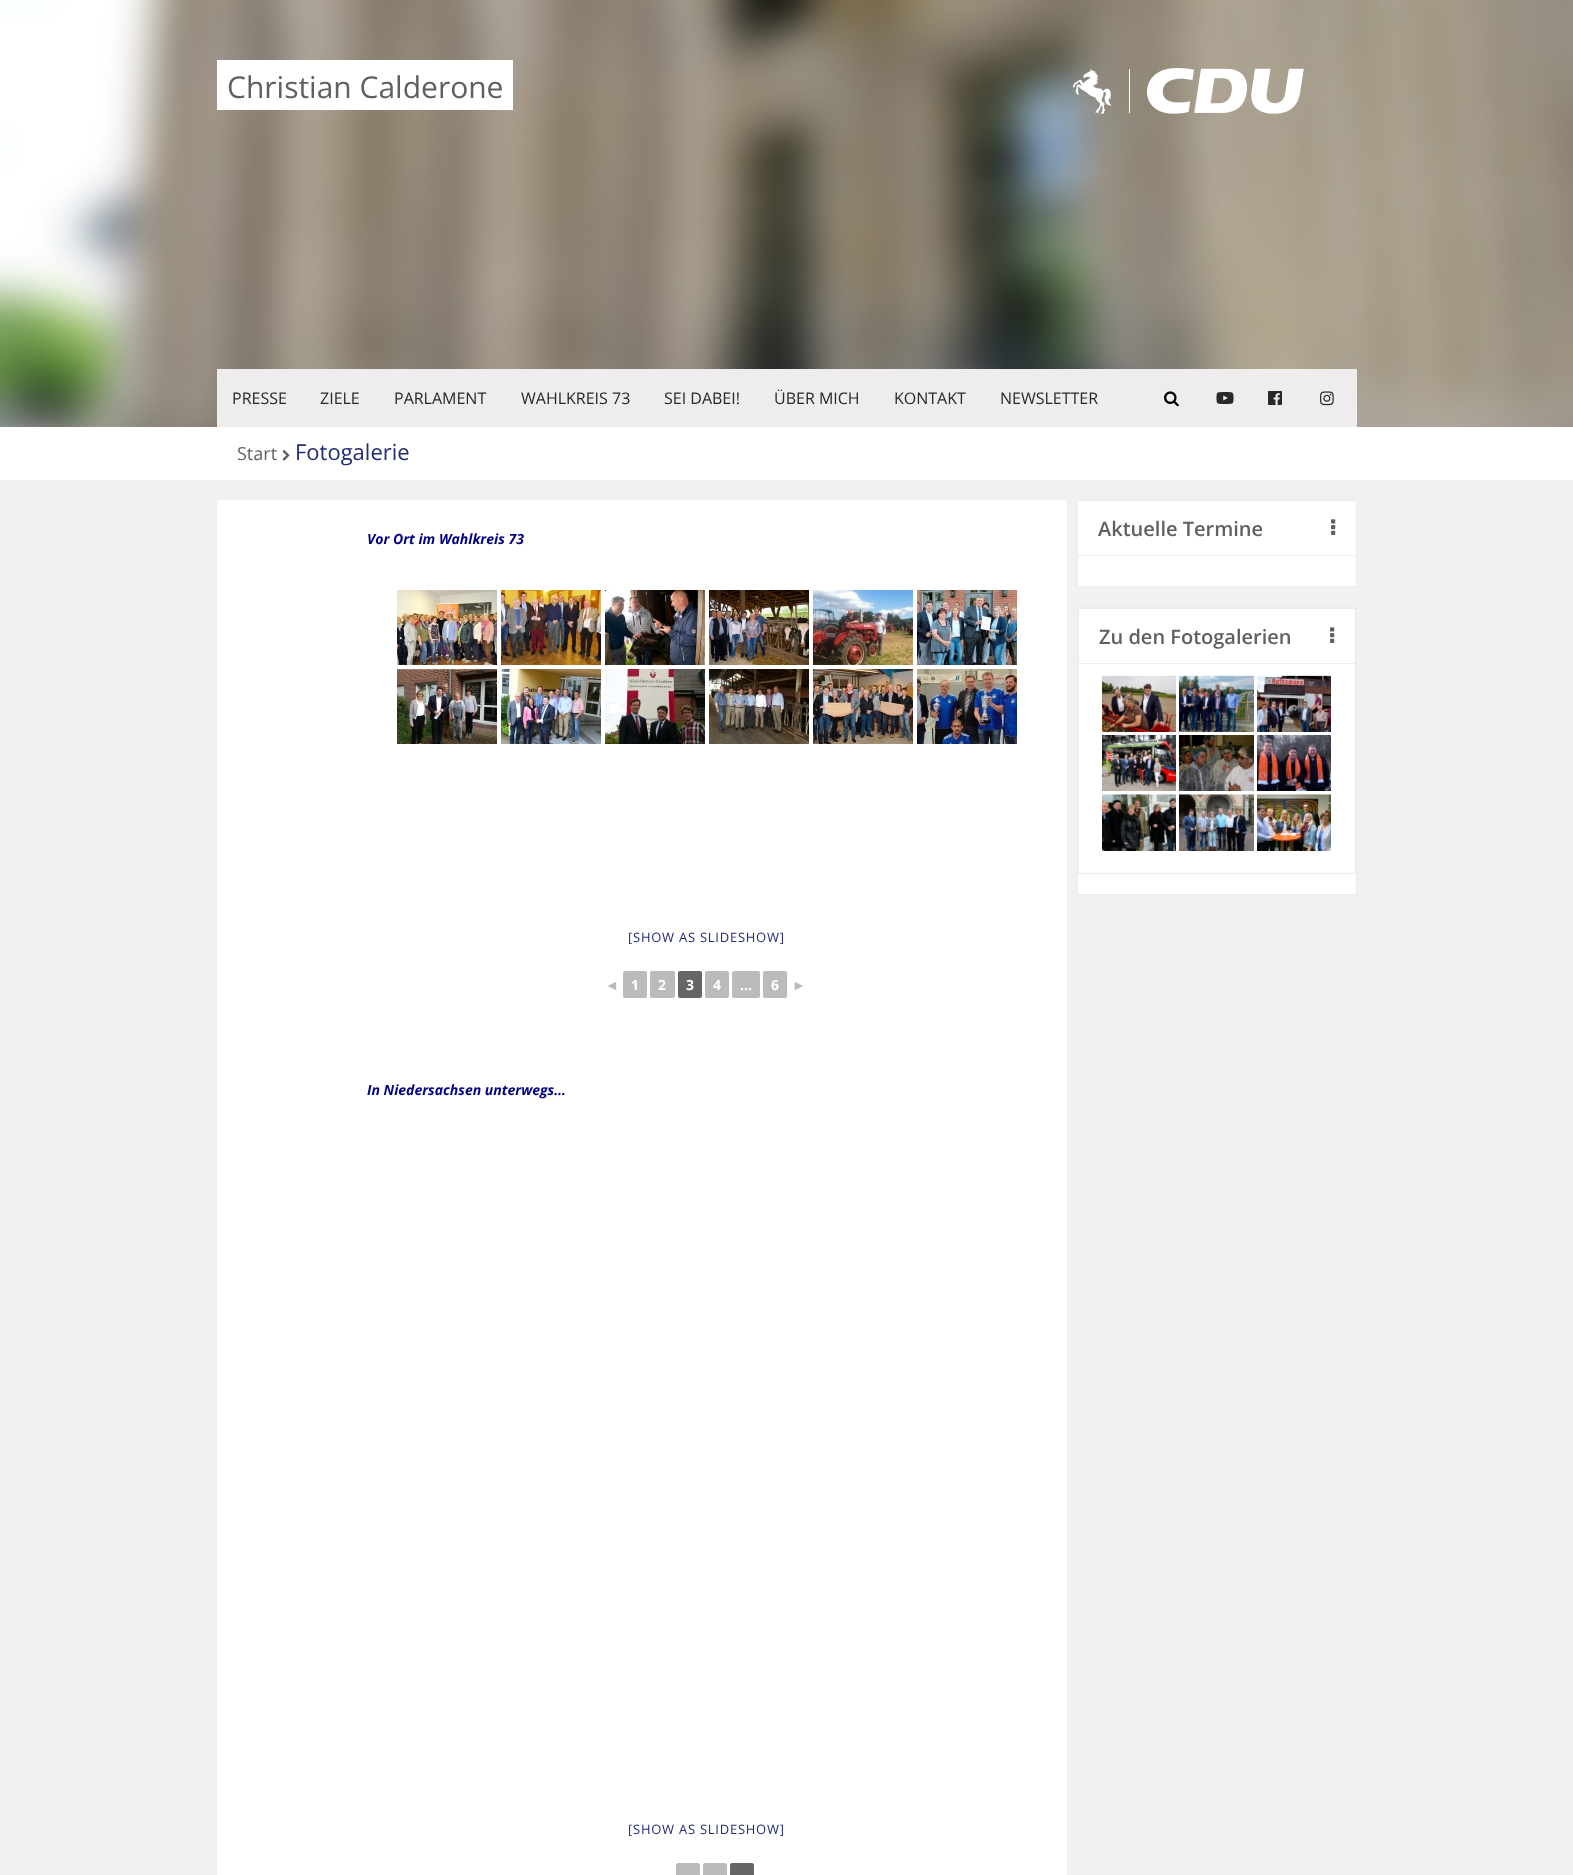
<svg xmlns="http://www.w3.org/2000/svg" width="1573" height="1875">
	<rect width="100%" height="100%" fill="#FFFFFF" />
	<image x="0" y="0" width="1573" height="427" href="assets/img1.png" />
	<rect x="217" y="60" width="296" height="50" fill="#FFFFFF" />
	<text x="227" y="98" font-family="Open Sans" font-size="30" fill="#606060">Christian Calderone</text>
	<image x="1073" y="68" width="231" height="46" href="assets/img2.png" />
	<rect x="217" y="369" width="1140" height="58" fill="#EEECED" />
	<g font-family="Open Sans" font-size="16" fill="#282828">
		<text x="232" y="404">PRESSE</text>
		<text x="320" y="404">ZIELE</text>
		<text x="394" y="404">PARLAMENT</text>
		<text x="521" y="404">WAHLKREIS 73</text>
		<text x="664" y="404">SEI DABEI!</text>
		<text x="774" y="404">ÜBER MICH</text>
		<text x="894" y="404">KONTAKT</text>
		<text x="1000" y="404">NEWSLETTER</text>
	</g>
	<image x="1164" y="391" width="15" height="16" href="assets/img3.png" />
	<image x="1216" y="392" width="18" height="12" href="assets/img4.png" />
	<image x="1268" y="391" width="14" height="14" href="assets/img5.png" />
	<image x="1320" y="391" width="14" height="15" href="assets/img6.png" />
	<text x="237" y="460" font-family="Open Sans" font-size="18" fill="#606060">Start</text>
	<image x="282" y="449" width="8" height="12" href="assets/img7.png" />
	<text x="295" y="460" font-family="Open Sans" font-size="22" fill="#222C76">Fotogalerie</text>
	<rect x="0" y="480" width="1573" height="1395" fill="#F1F1F1" />
	<rect x="217" y="500" width="850" height="1375" fill="#FFFFFF" />
	<text x="367" y="544" font-family="Open Sans" font-size="14" font-weight="700" font-style="italic" fill="#000080">Vor Ort im Wahlkreis 73</text>
	<image x="397" y="590" width="100" height="75" href="assets/img8.png" />
	<image x="501" y="590" width="100" height="75" href="assets/img9.png" />
	<image x="605" y="590" width="100" height="75" href="assets/img10.png" />
	<image x="709" y="590" width="100" height="75" href="assets/img11.png" />
	<image x="813" y="590" width="100" height="75" href="assets/img12.png" />
	<image x="917" y="590" width="100" height="75" href="assets/img13.png" />
	<image x="397" y="669" width="100" height="75" href="assets/img14.png" />
	<image x="501" y="669" width="100" height="75" href="assets/img15.png" />
	<image x="605" y="669" width="100" height="75" href="assets/img16.png" />
	<image x="709" y="669" width="100" height="75" href="assets/img17.png" />
	<image x="813" y="669" width="100" height="75" href="assets/img18.png" />
	<image x="917" y="669" width="100" height="75" href="assets/img19.png" />
	<text x="628" y="942" font-family="Open Sans" font-size="13" letter-spacing="0.75" fill="#222C76">[SHOW AS SLIDESHOW]</text>
	<text x="605" y="990" font-family="Liberation Sans" font-size="14" font-weight="700" fill="#BBBBBB">◄</text>
	<rect x="623" y="971" width="24" height="27" rx="2" fill="#BBBBBB" />
	<text x="631" y="990" font-family="Open Sans" font-size="14" font-weight="700" fill="#FFFFFF">1</text>
	<rect x="650" y="971" width="25" height="27" rx="2" fill="#BBBBBB" />
	<text x="658" y="990" font-family="Open Sans" font-size="14" font-weight="700" fill="#FFFFFF">2</text>
	<rect x="678" y="971" width="24" height="27" rx="2" fill="#666666" />
	<text x="686" y="990" font-family="Open Sans" font-size="14" font-weight="700" fill="#FFFFFF">3</text>
	<rect x="705" y="971" width="24" height="27" rx="2" fill="#BBBBBB" />
	<text x="713" y="990" font-family="Open Sans" font-size="14" font-weight="700" fill="#FFFFFF">4</text>
	<rect x="732" y="971" width="28" height="27" rx="2" fill="#BBBBBB" />
	<text x="740" y="990" font-family="Open Sans" font-size="14" font-weight="700" fill="#FFFFFF">...</text>
	<rect x="763" y="971" width="24" height="27" rx="2" fill="#BBBBBB" />
	<text x="771" y="990" font-family="Open Sans" font-size="14" font-weight="700" fill="#FFFFFF">6</text>
	<text x="792" y="990" font-family="Liberation Sans" font-size="14" font-weight="700" fill="#BBBBBB">►</text>
	<text x="367" y="1095" font-family="Open Sans" font-size="14" font-weight="700" font-style="italic" fill="#000080">In Niedersachsen unterwegs…</text>
	<text x="628" y="1834" font-family="Open Sans" font-size="13" letter-spacing="0.75" fill="#222C76">[SHOW AS SLIDESHOW]</text>
	<path d="M678 1863H698C699 1863 700 1864 700 1865V1875H676V1865C676 1864 677 1863 678 1863Z" fill="#BBBBBB" />
	<path d="M705 1863H725C726 1863 727 1864 727 1865V1875H703V1865C703 1864 704 1863 705 1863Z" fill="#BBBBBB" />
	<path d="M732 1863H752C753 1863 754 1864 754 1865V1875H730V1865C730 1864 731 1863 732 1863Z" fill="#666666" />
	<rect x="1077.5" y="500.5" width="279" height="86" fill="#FFFFFF" stroke="#ECECEC" />
	<rect x="1078" y="555" width="278" height="1" fill="#EEECED" />
	<text x="1098" y="536" font-family="Open Sans" font-size="20" font-weight="600" fill="#606060">Aktuelle Termine</text>
	<image x="1331" y="519" width="5" height="16" href="assets/img20.png" />
	<rect x="1078" y="609" width="278" height="285" fill="#FFFFFF" />
	<rect x="1077.5" y="607.5" width="279" height="287" fill="none" stroke="#ECECEC" />
	<rect x="1078.5" y="608.5" width="277" height="265" fill="none" stroke="#ECECEC" />
	<rect x="1079" y="663" width="276" height="1" fill="#EEECED" />
	<text x="1099" y="644" font-family="Open Sans" font-size="20" font-weight="600" fill="#606060">Zu den Fotogalerien</text>
	<image x="1330" y="627" width="5" height="16" href="assets/img20.png" />
	<image x="1101" y="675" width="230" height="176" href="assets/img21.png" />
</svg>
